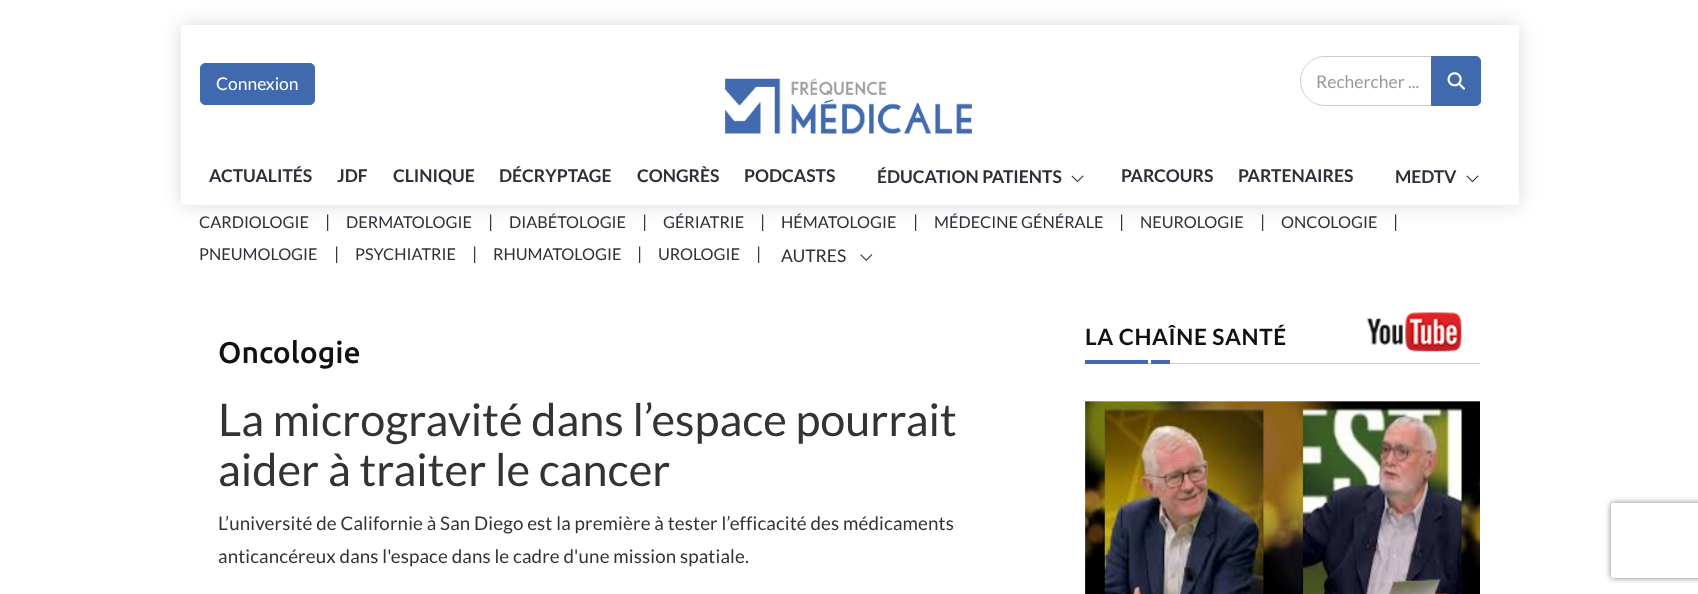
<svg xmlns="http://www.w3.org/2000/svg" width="1698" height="594">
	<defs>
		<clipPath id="clip1"><path d="M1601 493H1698V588H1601ZM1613.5 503H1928.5C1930 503 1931 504 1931 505.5V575.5C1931 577 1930 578 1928.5 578H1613.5C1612 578 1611 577 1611 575.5V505.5C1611 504 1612 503 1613.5 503Z" clip-rule="evenodd" /></clipPath>
	</defs>
	<rect width="100%" height="100%" fill="#FFFFFF" />
	<rect x="181" y="25" width="1338" height="180" fill="#000000" fill-opacity="0.15" filter="blur(9.5px)" />
	<rect x="181" y="25" width="1338" height="180" fill="#FFFFFF" />
	<rect x="200.5" y="63.5" width="114" height="41" rx="4.5" fill="#4169AE" stroke="#4169AE" />
	<text x="216" y="90" font-family="Lato" font-size="17.5" fill="#FFFFFF">Connexion</text>
	<image x="725" y="78" width="247" height="56" href="assets/img1.png" />
	<path d="M1325 56.5H1438.5V105.5H1325C1311.5 105.5 1300.5 94.5 1300.5 81C1300.5 67.5 1311.5 56.5 1325 56.5Z" fill="none" stroke="#CCCCCC" />
	<text x="1316" y="88" font-family="Lato" font-size="17.5" fill="#999999">Rechercher ...</text>
	<path d="M1431.5 56.5H1476C1478.5 56.5 1480.5 58.5 1480.5 61V101C1480.5 103.5 1478.5 105.5 1476 105.5H1431.5Z" fill="#4169AE" stroke="#4169AE" />
	<image x="1447" y="72" width="18" height="18" href="assets/img2.png" />
	<g font-family="Lato" font-size="17.5" font-weight="700" fill="#2D3038">
		<text x="209" y="182">ACTUALITÉS</text>
		<text x="337" y="182">JDF</text>
		<text x="393" y="182">CLINIQUE</text>
		<text x="499" y="182">DÉCRYPTAGE</text>
		<text x="637" y="182">CONGRÈS</text>
		<text x="744" y="182">PODCASTS</text>
		<text x="877" y="183">ÉDUCATION PATIENTS</text>
	</g>
	<image x="1071" y="175" width="13" height="8" href="assets/img3.png" />
	<g font-family="Lato" font-size="17.5" font-weight="700" fill="#2D3038">
		<text x="1121" y="182">PARCOURS</text>
		<text x="1238" y="182">PARTENAIRES</text>
		<text x="1395" y="183">MEDTV</text>
	</g>
	<image x="1466" y="175" width="13" height="8" href="assets/img3.png" />
	<text x="199" y="228" font-family="Lato" font-size="16.25" fill="#2D3038">CARDIOLOGIE</text>
	<text x="325" y="228" font-family="Lato" font-size="17.5" fill="#333333">|</text>
	<text x="346" y="228" font-family="Lato" font-size="16.25" fill="#2D3038">DERMATOLOGIE</text>
	<text x="488" y="228" font-family="Lato" font-size="17.5" fill="#333333">|</text>
	<text x="509" y="228" font-family="Lato" font-size="16.25" fill="#2D3038">DIABÉTOLOGIE</text>
	<text x="642" y="228" font-family="Lato" font-size="17.5" fill="#333333">|</text>
	<text x="663" y="228" font-family="Lato" font-size="16.25" fill="#2D3038">GÉRIATRIE</text>
	<text x="760" y="228" font-family="Lato" font-size="17.5" fill="#333333">|</text>
	<text x="781" y="228" font-family="Lato" font-size="16.25" fill="#2D3038">HÉMATOLOGIE</text>
	<text x="913" y="228" font-family="Lato" font-size="17.5" fill="#333333">|</text>
	<text x="934" y="228" font-family="Lato" font-size="16.25" fill="#2D3038">MÉDECINE GÉNÉRALE</text>
	<text x="1119" y="228" font-family="Lato" font-size="17.5" fill="#333333">|</text>
	<text x="1140" y="228" font-family="Lato" font-size="16.25" fill="#2D3038">NEUROLOGIE</text>
	<text x="1260" y="228" font-family="Lato" font-size="17.5" fill="#333333">|</text>
	<text x="1281" y="228" font-family="Lato" font-size="16.25" fill="#2D3038">ONCOLOGIE</text>
	<text x="1393" y="228" font-family="Lato" font-size="17.5" fill="#333333">|</text>
	<text x="199" y="260" font-family="Lato" font-size="16.25" fill="#2D3038">PNEUMOLOGIE</text>
	<text x="334" y="260" font-family="Lato" font-size="17.5" fill="#333333">|</text>
	<text x="355" y="260" font-family="Lato" font-size="16.25" fill="#2D3038">PSYCHIATRIE</text>
	<text x="472" y="260" font-family="Lato" font-size="17.5" fill="#333333">|</text>
	<text x="493" y="260" font-family="Lato" font-size="16.25" fill="#2D3038">RHUMATOLOGIE</text>
	<text x="637" y="260" font-family="Lato" font-size="17.5" fill="#333333">|</text>
	<text x="658" y="260" font-family="Lato" font-size="16.25" fill="#2D3038">UROLOGIE</text>
	<text x="756" y="260" font-family="Lato" font-size="17.5" fill="#333333">|</text>
	<text x="781" y="262" font-family="Lato" font-size="17.5" fill="#2D3038">AUTRES</text>
	<image x="860" y="254" width="13" height="7" href="assets/img4.png" />
	<text x="1085" y="345" font-family="Lato" font-size="22.5" font-weight="700" letter-spacing="0.6" fill="#111111">LA CHAÎNE SANTÉ</text>
	<image x="1367" y="312" width="95" height="40" href="assets/img5.png" />
	<rect x="1148" y="363" width="332" height="1" fill="#CCCCCC" />
	<rect x="1085" y="360" width="63" height="4" fill="#4169AE" />
	<rect x="1151" y="360" width="19" height="4" fill="#4169AE" />
	<image x="1085" y="401" width="395" height="193" href="assets/img6.png" />
	<text x="218" y="363" font-family="Ubuntu" font-size="30" font-weight="500" fill="#111111">Oncologie</text>
	<g font-family="Lato" font-size="45" fill="#333333">
		<text x="218" y="436">La microgravité dans l’espace pourrait</text>
		<text x="218" y="486">aider à traiter le cancer</text>
	</g>
	<g font-family="Lato" font-size="18.75" letter-spacing="0.12" fill="#333333">
		<text x="218" y="530">L’université de Californie à San Diego est la première à tester l’efficacité des médicaments</text>
		<text x="218" y="563">anticancéreux dans l'espace dans le cadre d'une mission spatiale.</text>
	</g>
	<g clip-path="url(#clip1)">
		<rect x="1611" y="503" width="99" height="75" rx="2.5" fill="#808080" filter="blur(3px)" />
	</g>
</svg>
